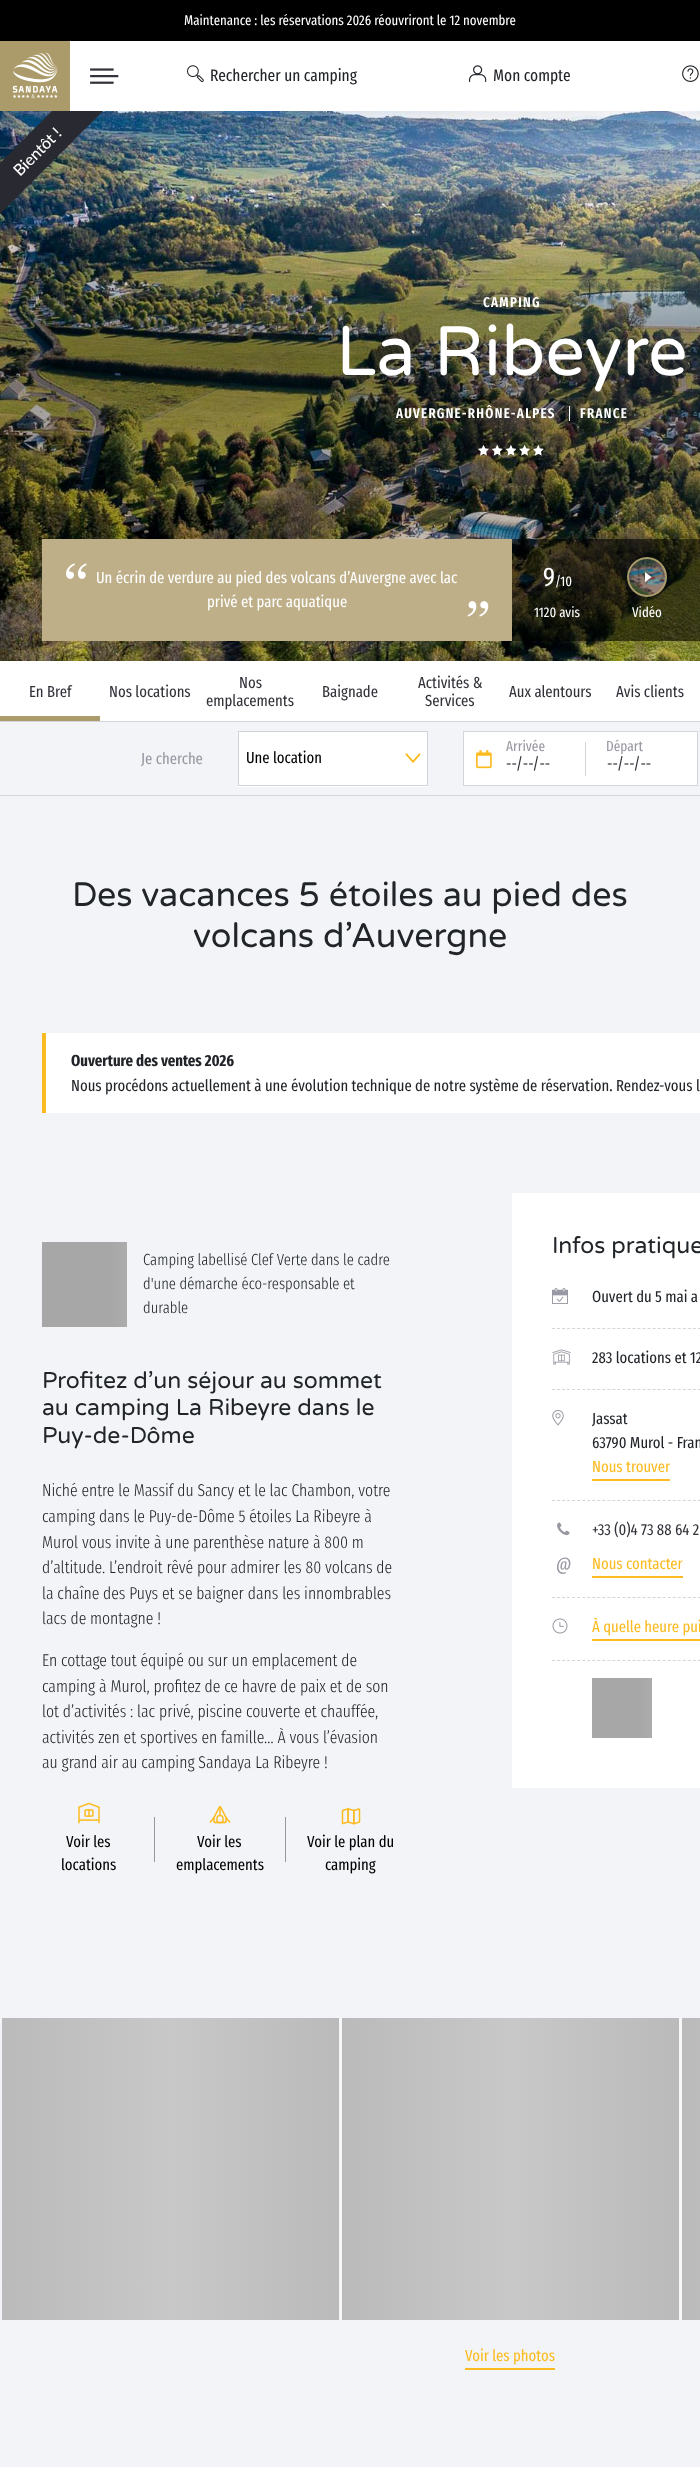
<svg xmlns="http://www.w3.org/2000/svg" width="700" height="2467">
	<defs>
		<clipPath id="clip1"><rect x="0" y="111" width="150" height="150" /></clipPath>
		<clipPath id="clip2"><rect x="0" y="111" width="150" height="150" /></clipPath>
		<linearGradient id="g1" gradientUnits="userSpaceOnUse" x1="512" y1="111" x2="512" y2="661"><stop offset="0" stop-color="#000000" stop-opacity="0" /><stop offset="0.17" stop-color="#000000" stop-opacity="0" /><stop offset="0.45" stop-color="#000000" stop-opacity="0.4" /><stop offset="1" stop-color="#000000" stop-opacity="0.1" /></linearGradient>
		<linearGradient id="g2" gradientUnits="userSpaceOnUse" x1="42" y1="1285" x2="382" y2="1285"><stop offset="0.2" stop-color="#A7A7A7" /><stop offset="0.5" stop-color="#C8C8C8" /><stop offset="0.8" stop-color="#A7A7A7" /></linearGradient>
		<linearGradient id="g3" gradientUnits="userSpaceOnUse" x1="592" y1="1708" x2="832" y2="1708"><stop offset="0.2" stop-color="#A7A7A7" /><stop offset="0.5" stop-color="#C8C8C8" /><stop offset="0.8" stop-color="#A7A7A7" /></linearGradient>
		<linearGradient id="g4" gradientUnits="userSpaceOnUse" x1="-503" y1="2169" x2="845" y2="2169"><stop offset="0.2" stop-color="#A7A7A7" /><stop offset="0.5" stop-color="#C8C8C8" /><stop offset="0.8" stop-color="#A7A7A7" /></linearGradient>
		<linearGradient id="g5" gradientUnits="userSpaceOnUse" x1="-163" y1="2169" x2="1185" y2="2169"><stop offset="0.2" stop-color="#A7A7A7" /><stop offset="0.5" stop-color="#C8C8C8" /><stop offset="0.8" stop-color="#A7A7A7" /></linearGradient>
		<linearGradient id="g6" gradientUnits="userSpaceOnUse" x1="177" y1="2169" x2="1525" y2="2169"><stop offset="0.2" stop-color="#A7A7A7" /><stop offset="0.5" stop-color="#C8C8C8" /><stop offset="0.8" stop-color="#A7A7A7" /></linearGradient>
	</defs>
	<rect width="100%" height="100%" fill="#FFFFFF" />
	<rect x="0" y="0" width="700" height="41" fill="#000000" />
	<text x="184" y="25" font-family="Fira Sans Extra Condensed" font-size="14" fill="#FFFFFF">Maintenance : les réservations 2026 réouvriront le 12 novembre</text>
	<image x="0" y="41" width="70" height="70" href="assets/img1.png" />
	<image x="90" y="68" width="29" height="16" href="assets/img2.png" />
	<image x="187" y="65" width="17" height="17" href="assets/img3.png" />
	<text x="210" y="81" font-family="Fira Sans Extra Condensed" font-size="16.75" fill="#212529">Rechercher un camping</text>
	<image x="469" y="65" width="18" height="17" href="assets/img4.png" />
	<text x="493" y="81" font-family="Fira Sans Extra Condensed" font-size="16.75" fill="#212529">Mon compte</text>
	<image x="682" y="65" width="17" height="17" href="assets/img5.png" />
	<image x="0" y="111" width="700" height="550" href="assets/img6.png" />
	<g clip-path="url(#clip1)">
		<rect x="-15" y="138" width="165" height="36" fill="#000000" fill-opacity="0.1" filter="blur(5px)" />
	</g>
	<g clip-path="url(#clip2)">
		<path d="M-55 218L104 59L130 84L-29 243Z" fill="#292931" />
	</g>
	<text x="20" y="177" transform="rotate(-45 20 177)" font-family="Lato" font-size="16" font-weight="500" fill="#FFFFFF">Bientôt !</text>
	<rect x="0" y="213" width="700" height="448" fill="url(#g1)" />
	<text x="483" y="307" font-family="Fira Sans Extra Condensed" font-size="14" font-weight="600" letter-spacing="1.3" fill="#FFFFFF">CAMPING</text>
	<text x="336" y="375" font-family="Varela Round" font-size="70" fill="#FFFFFF">La Ribeyre</text>
	<text x="396" y="418" font-family="Fira Sans Extra Condensed" font-size="14" font-weight="600" letter-spacing="1.3" fill="#FFFFFF">AUVERGNE-RHÔNE-ALPES</text>
	<rect x="569" y="406" width="1" height="15" fill="#FFFFFF" />
	<text x="580" y="418" font-family="Fira Sans Extra Condensed" font-size="14" font-weight="600" letter-spacing="1.3" fill="#FFFFFF">FRANCE</text>
	<image x="478" y="444" width="66" height="12" href="assets/img7.png" />
	<rect x="42" y="539" width="470" height="102" fill="#BEAF89" />
	<image x="66" y="563" width="21" height="16" href="assets/img8.png" />
	<g font-family="Fira Sans Extra Condensed" font-size="16" fill="#FFFFFF">
		<text x="96" y="583">Un écrin de verdure au pied des volcans d’Auvergne avec lac</text>
		<text x="207" y="607">privé et parc aquatique</text>
	</g>
	<image x="467" y="601" width="22" height="16" href="assets/img9.png" />
	<rect x="512" y="539" width="188" height="102" fill="#000000" fill-opacity="0.55" />
	<text x="543" y="586" font-family="Fira Sans Extra Condensed" font-size="27" fill="#FFFFFF">9</text>
	<g font-family="Fira Sans Extra Condensed" font-size="14" fill="#FFFFFF">
		<text x="555" y="586">/10</text>
		<text x="534" y="617">1120 avis</text>
	</g>
	<image x="627" y="557" width="40" height="40" href="assets/img10.png" />
	<text x="632" y="617" font-family="Fira Sans Extra Condensed" font-size="14" fill="#FFFFFF">Vidéo</text>
	<rect x="0" y="721" width="700" height="1" fill="#D4D5DB" />
	<text x="29" y="697" font-family="Fira Sans Extra Condensed" font-size="16" fill="#32323A">En Bref</text>
	<rect x="0" y="716" width="100" height="5" fill="#AC9B6A" />
	<g font-family="Fira Sans Extra Condensed" font-size="16" fill="#32323A">
		<text x="109" y="697">Nos locations</text>
		<text x="239" y="688">Nos</text>
		<text x="206" y="706">emplacements</text>
		<text x="322" y="697">Baignade</text>
		<text x="418" y="688">Activités &amp;</text>
		<text x="425" y="706">Services</text>
		<text x="509" y="697">Aux alentours</text>
		<text x="616" y="697">Avis clients</text>
	</g>
	<rect x="0" y="722" width="700" height="73" fill="#F2F4F7" />
	<rect x="0" y="795" width="700" height="1" fill="#D4D5DB" />
	<text x="141" y="764" font-family="Fira Sans Extra Condensed" font-size="16" fill="#9898A2">Je cherche</text>
	<rect x="238" y="732" width="190" height="55" fill="#FFFFFF" />
	<image x="405" y="753" width="16" height="10" href="assets/img11.png" />
	<rect x="238.5" y="731.5" width="189" height="54" fill="none" stroke="#CED4DA" />
	<text x="246" y="763" font-family="Fira Sans Extra Condensed" font-size="16" fill="#000000">Une location</text>
	<rect x="463.5" y="731.5" width="234" height="54" fill="#FFFFFF" stroke="#D4D5DB" />
	<image x="476" y="750" width="16" height="19" href="assets/img12.png" />
	<text x="506" y="751" font-family="Fira Sans Extra Condensed" font-size="14.5" fill="#9898A2">Arrivée</text>
	<text x="506" y="769" font-family="Fira Sans Extra Condensed" font-size="16" fill="#32323A">--/--/--</text>
	<rect x="585" y="742" width="1" height="34" fill="#D4D5DB" />
	<text x="606" y="751" font-family="Fira Sans Extra Condensed" font-size="14.5" fill="#9898A2">Départ</text>
	<text x="607" y="769" font-family="Fira Sans Extra Condensed" font-size="16" fill="#32323A">--/--/--</text>
	<rect x="0" y="796" width="700" height="1671" fill="#F2F4F7" />
	<g font-family="Varela Round" font-size="34" fill="#212529">
		<text x="72" y="906">Des vacances 5 étoiles au pied des</text>
		<text x="193" y="947">volcans d’Auvergne</text>
	</g>
	<rect x="46" y="1033" width="654" height="80" fill="#FFFFFF" />
	<rect x="42" y="1033" width="4" height="80" fill="#FBBB21" />
	<text x="71" y="1066" font-family="Fira Sans Extra Condensed" font-size="16" font-weight="700" fill="#212529">Ouverture des ventes 2026</text>
	<text x="71" y="1091" font-family="Fira Sans Extra Condensed" font-size="16" fill="#212529">Nous procédons actuellement à une évolution technique de notre système de réservation. Rendez-vous l</text>
	<rect x="42" y="1242" width="85" height="85" fill="url(#g2)" />
	<g font-family="Fira Sans Extra Condensed" font-size="16" font-weight="300" fill="#212529">
		<text x="143" y="1265">Camping labellisé Clef Verte dans le cadre</text>
		<text x="143" y="1289">d'une démarche éco-responsable et</text>
		<text x="143" y="1313">durable</text>
	</g>
	<g font-family="Varela Round" font-size="23" fill="#212529">
		<text x="42" y="1388">Profitez d’un séjour au sommet</text>
		<text x="42" y="1415">au camping La Ribeyre dans le</text>
		<text x="42" y="1443">Puy-de-Dôme</text>
	</g>
	<g font-family="Fira Sans Extra Condensed" font-size="17.1" font-weight="300" fill="#212529">
		<text x="42" y="1496">Niché entre le Massif du Sancy et le lac Chambon, votre</text>
		<text x="42" y="1522">camping dans le Puy-de-Dôme 5 étoiles La Ribeyre à</text>
		<text x="42" y="1548">Murol vous invite à une parenthèse nature à 800 m</text>
		<text x="42" y="1573">d’altitude. L’endroit rêvé pour admirer les 80 volcans de</text>
		<text x="42" y="1599">la chaîne des Puys et se baigner dans les innombrables</text>
		<text x="42" y="1624">lacs de montagne !</text>
		<text x="42" y="1666">En cottage tout équipé ou sur un emplacement de</text>
		<text x="42" y="1692">camping à Murol, profitez de ce havre de paix et de son</text>
		<text x="42" y="1717">lot d’activités : lac privé, piscine couverte et chauffée,</text>
		<text x="42" y="1743">activités zen et sportives en famille… À vous l’évasion</text>
		<text x="42" y="1768">au grand air au camping Sandaya La Ribeyre !</text>
	</g>
	<image x="78" y="1802" width="22" height="22" href="assets/img13.png" />
	<g font-family="Fira Sans Extra Condensed" font-size="16" fill="#000000">
		<text x="66" y="1847">Voir les</text>
		<text x="61" y="1870">locations</text>
	</g>
	<rect x="154" y="1817" width="1" height="45" fill="#9898A2" />
	<image x="209" y="1805" width="22" height="19" href="assets/img14.png" />
	<g font-family="Fira Sans Extra Condensed" font-size="16" fill="#000000">
		<text x="197" y="1847">Voir les</text>
		<text x="176" y="1870">emplacements</text>
	</g>
	<rect x="285" y="1817" width="1" height="45" fill="#9898A2" />
	<image x="341" y="1808" width="20" height="17" href="assets/img15.png" />
	<g font-family="Fira Sans Extra Condensed" font-size="16" fill="#000000">
		<text x="307" y="1847">Voir le plan du</text>
		<text x="325" y="1870">camping</text>
	</g>
	<rect x="512" y="1193" width="188" height="595" fill="#FFFFFF" />
	<text x="552" y="1253" font-family="Varela Round" font-size="23" fill="#212529">Infos pratique</text>
	<image x="552" y="1288" width="16" height="16" href="assets/img16.png" />
	<text x="592" y="1302" font-family="Fira Sans Extra Condensed" font-size="16" fill="#212529">Ouvert du 5 mai a</text>
	<path d="M552 1328.5H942" fill="none" stroke="#D4D5DB" stroke-dasharray="3 2.03" />
	<image x="552" y="1349" width="19" height="16" href="assets/img17.png" />
	<text x="592" y="1363" font-family="Fira Sans Extra Condensed" font-size="16" fill="#212529">283 locations et 12</text>
	<path d="M552 1389.5H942" fill="none" stroke="#D4D5DB" stroke-dasharray="3 2.03" />
	<image x="552" y="1410" width="12" height="16" href="assets/img18.png" />
	<g font-family="Fira Sans Extra Condensed" font-size="16" fill="#212529">
		<text x="592" y="1424">Jassat</text>
		<text x="592" y="1448">63790 Murol - Fran</text>
	</g>
	<rect x="592" y="1479" width="78" height="2" fill="#FBBB21" />
	<text x="592" y="1472" font-family="Fira Sans Extra Condensed" font-size="16" fill="#FBBB21">Nous trouver</text>
	<path d="M552 1500.5H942" fill="none" stroke="#D4D5DB" stroke-dasharray="3 2.03" />
	<image x="557" y="1522" width="13" height="14" href="assets/img19.png" />
	<text x="592" y="1535" font-family="Fira Sans Extra Condensed" font-size="16" fill="#32323A">+33 (0)4 73 88 64 2</text>
	<text x="556" y="1570" font-family="Fira Sans Extra Condensed" font-size="18" font-style="italic" fill="#9898A2">@</text>
	<rect x="592" y="1576" width="91" height="2" fill="#FBBB21" />
	<text x="592" y="1569" font-family="Fira Sans Extra Condensed" font-size="16" fill="#FBBB21">Nous contacter</text>
	<path d="M552 1597.5H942" fill="none" stroke="#D4D5DB" stroke-dasharray="3 2.03" />
	<image x="552" y="1618" width="16" height="16" href="assets/img20.png" />
	<rect x="592" y="1639" width="108" height="2" fill="#FBBB21" />
	<text x="592" y="1632" font-family="Fira Sans Extra Condensed" font-size="16" fill="#FBBB21">À quelle heure pui</text>
	<path d="M552 1660.5H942" fill="none" stroke="#D4D5DB" stroke-dasharray="3 2.03" />
	<rect x="592" y="1678" width="60" height="60" fill="url(#g3)" />
	<rect x="2" y="2018" width="337" height="302" fill="url(#g4)" />
	<rect x="339" y="2018" width="3" height="302" fill="#F6F7F9" />
	<rect x="342" y="2018" width="337" height="302" fill="url(#g5)" />
	<rect x="679" y="2018" width="3" height="302" fill="#F6F7F9" />
	<rect x="682" y="2018" width="18" height="302" fill="url(#g6)" />
	<rect x="465" y="2368" width="90" height="2" fill="#FBBB21" />
	<text x="465" y="2361" font-family="Fira Sans Extra Condensed" font-size="16" fill="#FBBB21">Voir les photos</text>
</svg>
